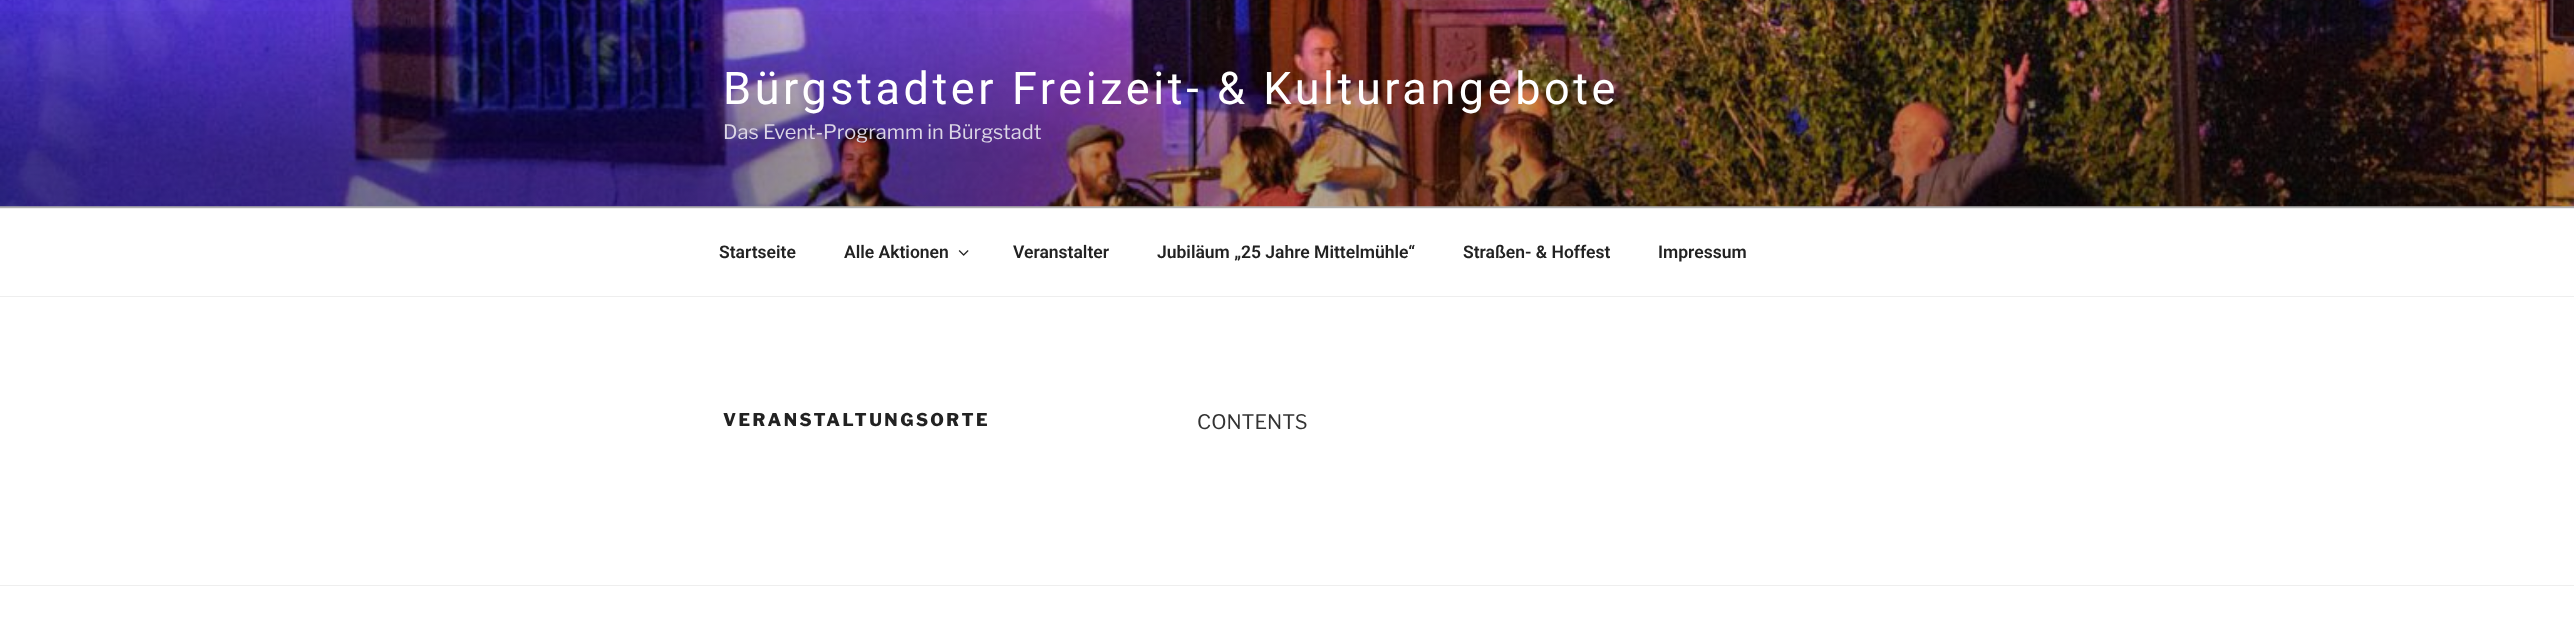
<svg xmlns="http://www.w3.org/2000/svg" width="2574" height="625">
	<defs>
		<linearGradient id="g1" gradientUnits="userSpaceOnUse" x1="1288" y1="0" x2="1288" y2="208"><stop offset="0" stop-color="#000000" stop-opacity="0" /><stop offset="0.75" stop-color="#000000" stop-opacity="0.3" /><stop offset="1" stop-color="#000000" stop-opacity="0.3" /></linearGradient>
	</defs>
	<rect width="100%" height="100%" fill="#FFFFFF" />
	<rect x="0" y="206" width="2574" height="2" fill="#FAFAFA" />
	<image x="0" y="0" width="2574" height="207" href="assets/img1.png" />
	<rect x="0" y="11" width="2574" height="197" fill="url(#g1)" />
	<text x="723" y="104" font-family="Roboto" font-size="45" letter-spacing="3.6" fill="#FFFFFF">Bürgstadter Freizeit- &amp; Kulturangebote</text>
	<text x="723" y="139" font-family="'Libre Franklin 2'" font-size="20" font-weight="100" fill="#DCD6E6">Das Event-Programm in Bürgstadt</text>
	<rect x="0" y="208" width="2574" height="1" fill="#EEEEEE" />
	<rect x="0" y="296" width="2574" height="1" fill="#EEEEEE" />
	<g font-family="Roboto" font-size="17.5" font-weight="600" fill="#222222">
		<text x="719" y="258">Startseite</text>
		<text x="844" y="258">Alle Aktionen</text>
	</g>
	<image x="958" y="250" width="11" height="6" href="assets/img2.png" />
	<g font-family="Roboto" font-size="17.5" font-weight="600" fill="#222222">
		<text x="1013" y="258">Veranstalter</text>
		<text x="1157" y="258">Jubiläum „25 Jahre Mittelmühle“</text>
		<text x="1463" y="258">Straßen- &amp; Hoffest</text>
		<text x="1658" y="258">Impressum</text>
	</g>
	<text x="723" y="426" font-family="Libre Franklin" font-size="17.5" font-weight="100" letter-spacing="2.5" fill="#222222">VERANSTALTUNGSORTE</text>
	<text x="1197" y="429" font-family="'Libre Franklin 2'" font-size="20" font-weight="100" fill="#333333">CONTENTS</text>
	<rect x="0" y="585" width="2574" height="1" fill="#EEEEEE" />
</svg>
